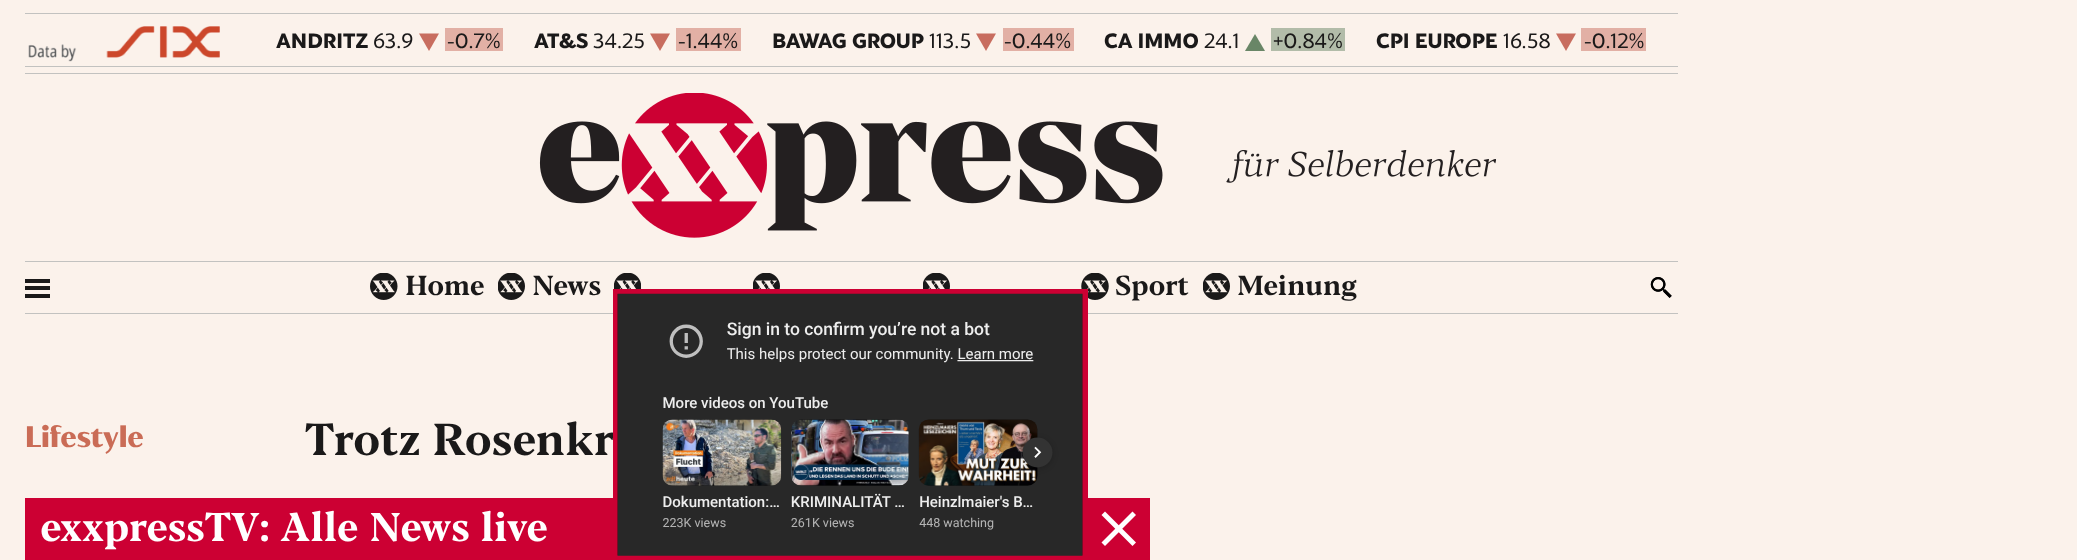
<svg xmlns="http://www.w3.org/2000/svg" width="2077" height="560">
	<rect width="100%" height="100%" fill="#FBF2EB" />
	<rect x="25" y="13" width="1653" height="1" fill="#C2C2C0" />
	<rect x="25" y="73" width="1653" height="1" fill="#C2C2C0" />
	<image x="28" y="26" width="192" height="36" href="assets/img1.png" />
	<text x="276" y="48" font-family="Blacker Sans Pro" font-size="20.75" font-weight="800" fill="#1A1919">ANDRITZ</text>
	<text x="373" y="48" font-family="Blacker Sans Pro" font-size="20.75" font-weight="900" fill="#1A1919">63.9</text>
	<path d="M419 33.5H439L429 51Z" fill="#C86D5F" />
	<rect x="445" y="28" width="58" height="23" fill="#E2B0A5" />
	<text x="447" y="48" font-family="Blacker Sans Pro" font-size="20.75" font-weight="900" fill="#1A1919">-0.7%</text>
	<text x="534" y="48" font-family="Blacker Sans Pro" font-size="20.75" font-weight="800" fill="#1A1919">AT&amp;S</text>
	<text x="593" y="48" font-family="Blacker Sans Pro" font-size="20.75" font-weight="900" fill="#1A1919">34.25</text>
	<path d="M650 33.5H670L660 51Z" fill="#C86D5F" />
	<rect x="676" y="28" width="65" height="23" fill="#E2B0A5" />
	<text x="678" y="48" font-family="Blacker Sans Pro" font-size="20.75" font-weight="900" fill="#1A1919">-1.44%</text>
	<text x="772" y="48" font-family="Blacker Sans Pro" font-size="20.75" font-weight="800" fill="#1A1919">BAWAG GROUP</text>
	<text x="929" y="48" font-family="Blacker Sans Pro" font-size="20.75" font-weight="900" fill="#1A1919">113.5</text>
	<path d="M976 33.5H996L986 51Z" fill="#C86D5F" />
	<rect x="1003" y="28" width="71" height="23" fill="#E2B0A5" />
	<text x="1004" y="48" font-family="Blacker Sans Pro" font-size="20.75" font-weight="900" fill="#1A1919">-0.44%</text>
	<text x="1104" y="48" font-family="Blacker Sans Pro" font-size="20.75" font-weight="800" fill="#1A1919">CA IMMO</text>
	<text x="1204" y="48" font-family="Blacker Sans Pro" font-size="20.75" font-weight="900" fill="#1A1919">24.1</text>
	<path d="M1265 51H1245L1255 34Z" fill="#698667" />
	<rect x="1271" y="28" width="74" height="23" fill="#B2BCA9" />
	<text x="1273" y="48" font-family="Blacker Sans Pro" font-size="20.75" font-weight="900" fill="#1A1919">+0.84%</text>
	<text x="1376" y="48" font-family="Blacker Sans Pro" font-size="20.75" font-weight="800" fill="#1A1919">CPI EUROPE</text>
	<text x="1503" y="48" font-family="Blacker Sans Pro" font-size="20.75" font-weight="900" fill="#1A1919">16.58</text>
	<path d="M1556 33.5H1576L1566 51Z" fill="#C86D5F" />
	<rect x="1581" y="28" width="65" height="23" fill="#E2B0A5" />
	<text x="1584" y="48" font-family="Blacker Sans Pro" font-size="20.75" font-weight="900" fill="#1A1919">-0.12%</text>
	<rect x="25" y="66" width="1653" height="1" fill="#C2C2C0" />
	<image x="539" y="93" width="624" height="145" href="assets/img2.png" />
	<image x="1226" y="150" width="270" height="33" href="assets/img3.png" />
	<rect x="25" y="261" width="1653" height="1" fill="#C2C2C0" />
	<rect x="25" y="313" width="1653" height="1" fill="#C2C2C0" />
	<rect x="25" y="286" width="25" height="4" fill="#1A1919" />
	<rect x="25" y="279" width="25" height="4" fill="#1A1919" />
	<rect x="25" y="294" width="25" height="4" fill="#1A1919" />
	<image x="370" y="273" width="28" height="27" href="assets/img4.png" />
	<text x="405" y="295" font-family="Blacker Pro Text" font-size="27.5" font-weight="700" fill="#1A1919">Home</text>
	<image x="498" y="273" width="27" height="27" href="assets/img5.png" />
	<text x="532" y="295" font-family="Blacker Pro Text" font-size="27.5" font-weight="700" fill="#1A1919">News</text>
	<image x="614" y="273" width="27" height="16" href="assets/img6.png" />
	<image x="753" y="273" width="27" height="16" href="assets/img7.png" />
	<image x="923" y="273" width="27" height="16" href="assets/img7.png" />
	<image x="1081" y="273" width="28" height="27" href="assets/img8.png" />
	<text x="1115" y="295" font-family="Blacker Pro Text" font-size="27.5" font-weight="700" fill="#1A1919">Sport</text>
	<image x="1203" y="273" width="27" height="27" href="assets/img5.png" />
	<text x="1237" y="295" font-family="Blacker Pro Text" font-size="27.5" font-weight="700" fill="#1A1919">Meinung</text>
	<image x="1650" y="277" width="22" height="21" href="assets/img9.png" />
	<image x="1650" y="277" width="22" height="21" href="assets/img10.png" />
	<text x="25" y="447" font-family="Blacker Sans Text" font-size="29.5" font-weight="900" fill="#CA6C56">Lifestyle</text>
	<text x="305" y="455" font-family="Blacker Pro Text" font-size="44.5" font-weight="700" fill="#1A1919">Trotz Rosenkr</text>
	<rect x="25" y="498" width="1125" height="62" fill="#CC0033" />
	<text x="40" y="541" font-family="Blacker Pro Text" font-size="40" font-weight="700" fill="#FFFFFF">exxpressTV: Alle News live</text>
	<rect x="613" y="289" width="475" height="209" fill="#CC0033" />
	<image x="617" y="293" width="466" height="263" href="assets/img11.png" />
	<path d="M1105 511.5L1136 542.5L1132.5 546L1101.5 515Z" fill="#FFFFFF" />
	<path d="M1101.5 542.5L1132.5 511.5L1136 515L1105 546Z" fill="#FFFFFF" />
</svg>
